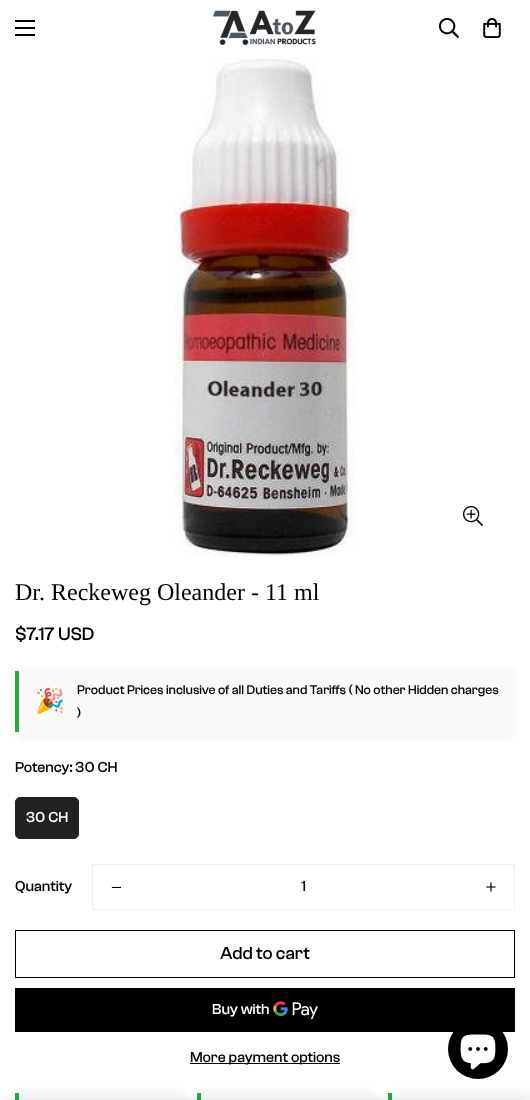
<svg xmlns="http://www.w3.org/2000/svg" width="530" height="1100">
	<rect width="100%" height="100%" fill="#FFFFFF" />
	<rect x="15" y="27" width="20" height="2" fill="#000000" />
	<rect x="15" y="20" width="20" height="2" fill="#000000" />
	<rect x="15" y="34" width="20" height="2" fill="#000000" />
	<image x="213" y="10" width="103" height="35" href="assets/img1.png" />
	<image x="439" y="18" width="20" height="20" href="assets/img2.png" />
	<image x="483" y="18" width="18" height="20" href="assets/img3.png" />
	<image x="174" y="57" width="182" height="500" href="assets/img4.png" />
	<image x="463" y="506" width="20" height="20" href="assets/img5.png" />
	<text x="15" y="600" font-family="Liberation Serif" font-size="24" fill="#000000">Dr. Reckeweg Oleander - 11 ml</text>
	<text x="15" y="640" font-family="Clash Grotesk" font-size="18.75" font-weight="500" fill="#000000">$7.17 USD</text>
	<rect x="15" y="669" width="500" height="69" rx="8" fill="#000000" fill-opacity="0.05" filter="blur(3px)" />
	<path d="M23 667H507C511 667 515 671 515 675V728C515 732 511 736 507 736H23C21 736 19 732 19 728V675C19 671 21 667 23 667Z" fill="#F9F9F9" />
	<rect x="15" y="671" width="4" height="61" fill="#28A745" />
	<text x="35" y="709" font-family="Noto Color Emoji" font-size="24" fill="#000000">🎉</text>
	<g font-family="Clash Grotesk" font-size="13" font-weight="500" fill="#000000">
		<text x="77" y="694">Product Prices inclusive of all Duties and Tariffs ( No other Hidden charges</text>
		<text x="77" y="717">)</text>
	</g>
	<text x="15" y="772" font-family="Clash Grotesk" font-size="15" font-weight="500" fill="#000000">Potency: 30 CH</text>
	<rect x="15.5" y="797.5" width="63" height="41" rx="4.5" fill="#222222" stroke="#222222" />
	<text x="26" y="822" font-family="Clash Grotesk" font-size="15" font-weight="500" fill="#FFFFFF">30 CH</text>
	<text x="15" y="891" font-family="Clash Grotesk" font-size="15" font-weight="500" fill="#000000">Quantity</text>
	<rect x="92.5" y="864.5" width="422" height="45" fill="none" stroke="#EEEEEE" />
	<image x="111" y="886" width="10" height="2" href="assets/img6.png" />
	<text x="301" y="891" font-family="Clash Grotesk" font-size="15" font-weight="500" fill="#000000">1</text>
	<image x="486" y="882" width="10" height="10" href="assets/img7.png" />
	<rect x="15.5" y="930.5" width="499" height="47" fill="none" stroke="#000000" />
	<text x="220" y="959" font-family="Clash Grotesk" font-size="18" font-weight="500" fill="#000000">Add to cart</text>
	<rect x="15" y="988" width="500" height="44" fill="#000000" />
	<text x="212" y="1014" font-family="Clash Grotesk" font-size="15" font-weight="500" fill="#FFFFFF">Buy with</text>
	<image x="273" y="1001" width="45" height="18" href="assets/img8.png" />
	<rect x="190" y="1063" width="150" height="1" fill="#000000" />
	<text x="190" y="1062" font-family="Clash Grotesk" font-size="15" font-weight="500" fill="#000000">More payment options</text>
	<rect x="15" y="1091" width="170" height="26" rx="8" fill="#000000" fill-opacity="0.05" filter="blur(3px)" />
	<path d="M23 1089H177C181 1089 185 1093 185 1097V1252C185 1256 181 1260 177 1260H23C21 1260 19 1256 19 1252V1097C19 1093 21 1089 23 1089Z" fill="#F9F9F9" />
	<rect x="15" y="1093" width="4" height="7" fill="#28A745" />
	<rect x="197" y="1091" width="179" height="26" rx="8" fill="#000000" fill-opacity="0.05" filter="blur(3px)" />
	<path d="M205 1089H368C372 1089 376 1093 376 1097V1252C376 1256 372 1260 368 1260H205C203 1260 201 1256 201 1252V1097C201 1093 203 1089 205 1089Z" fill="#F9F9F9" />
	<rect x="197" y="1093" width="4" height="7" fill="#28A745" />
	<rect x="388" y="1091" width="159" height="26" rx="8" fill="#000000" fill-opacity="0.05" filter="blur(3px)" />
	<path d="M396 1089H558C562 1089 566 1093 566 1097V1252C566 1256 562 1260 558 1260H396C394 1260 392 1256 392 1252V1097C392 1093 394 1089 396 1089Z" fill="#F9F9F9" />
	<rect x="388" y="1093" width="4" height="7" fill="#28A745" />
	<rect x="0" y="1100" width="530" height="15" fill="#000000" fill-opacity="0.09" filter="blur(5px)" />
	<circle cx="478" cy="1049" r="30" fill="#000000" />
	<image x="460" y="1034" width="36" height="36" href="assets/img9.png" />
</svg>
